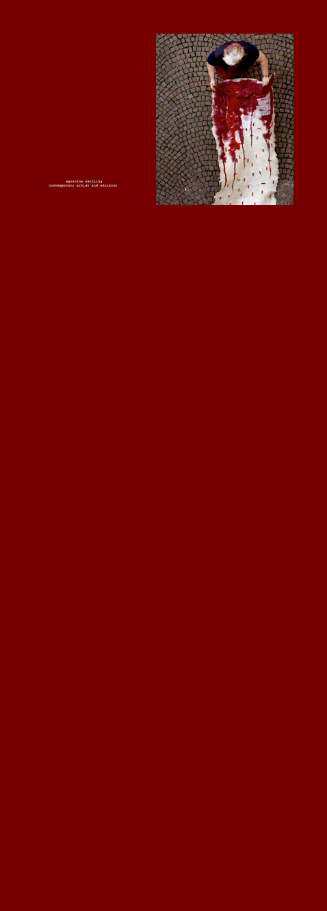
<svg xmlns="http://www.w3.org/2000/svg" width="327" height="911">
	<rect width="100%" height="100%" fill="#760000" />
	<image x="48" y="33" width="246" height="172" href="assets/img1.png" />
</svg>
